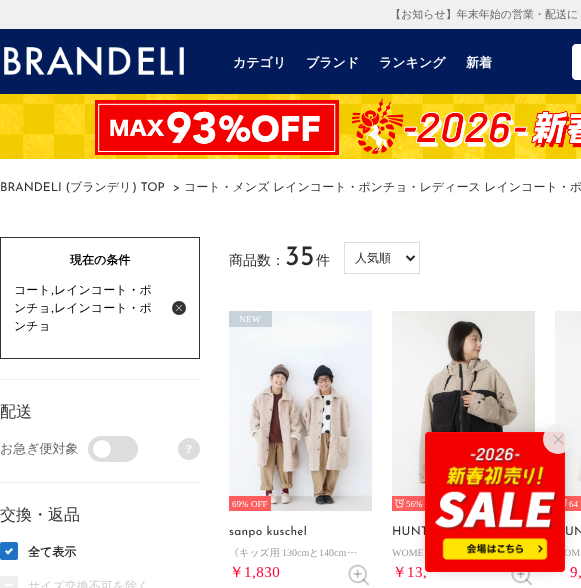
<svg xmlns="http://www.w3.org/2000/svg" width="581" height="588">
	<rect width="100%" height="100%" fill="#FFFFFF" />
	<rect x="0" y="0" width="581" height="29" fill="#F0F0F0" />
	<text x="390" y="18" font-family="WenQuanYi Zen Hei" font-size="11" font-weight="500" fill="#666666">【お知らせ】年末年始の営業・配送に</text>
	<rect x="0" y="29" width="581" height="65" fill="#021B5B" />
	<image x="4" y="47" width="180" height="28" href="assets/img1.png" />
	<g font-family="WenQuanYi Zen Hei" font-size="13" font-weight="700" fill="#FFFFFF">
		<text x="233" y="67">カテゴリ</text>
		<text x="306" y="67">ブランド</text>
		<text x="379" y="67">ランキング</text>
		<text x="466" y="67">新着</text>
	</g>
	<path d="M576 44H581C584.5 44 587 46.5 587 50V74C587 77.5 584.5 80 581 80H576C574 80 572 78 572 76V48C572 46 574 44 576 44Z" fill="#FFFFFF" />
	<image x="0" y="94" width="581" height="65" href="assets/img2.png" />
	<image x="392" y="311" width="143" height="200" href="assets/img8.png" />
	<rect x="392" y="496" width="33" height="15" fill="#FF4E4E" fill-opacity="0.9" />
	<image x="511" y="572" width="21" height="14" href="assets/img10.png" />
	<image x="555" y="311" width="26" height="200" href="assets/img11.png" />
	<rect x="565" y="496" width="16" height="15" fill="#FF4E4E" fill-opacity="0.9" />
	<image x="565" y="499" width="2" height="9" href="assets/img12.png" />
	<rect x="431" y="438" width="128" height="128" fill="#000000" fill-opacity="0.4" filter="blur(8px)" />
	<text x="392" y="535" font-family="Josefin Sans" font-size="12" letter-spacing="0.25" fill="#333333">HUNT</text>
	<text x="407" y="577" font-family="Liberation Serif" font-size="15" letter-spacing="0.5" fill="#FF0030">13,</text>
	<text x="564" y="556" font-family="Liberation Serif" font-size="10" fill="#999999">OM</text>
	<image x="425" y="432" width="140" height="140" href="assets/img4.png" />
	<circle cx="558" cy="439" r="15" fill="#EEEEEE" fill-opacity="0.9" />
	<image x="553" y="434" width="11" height="11" href="assets/img3.png" />
	<text x="0" y="191" font-family="Josefin Sans" font-size="12" fill="#333333">BRANDELI (</text>
	<text x="70" y="191" font-family="WenQuanYi Zen Hei" font-size="12" font-weight="500" fill="#333333">ブランデリ</text>
	<g font-family="Josefin Sans" font-size="12" fill="#333333">
		<text x="132" y="191">) TOP</text>
		<text x="173" y="191">&gt;</text>
	</g>
	<text x="184" y="191" font-family="WenQuanYi Zen Hei" font-size="12" font-weight="500" fill="#333333">コート・メンズ レインコート・ポンチョ・レディース レインコート・ポ</text>
	<rect x="0.5" y="237.5" width="199" height="121" fill="none" stroke="#333333" />
	<text x="70" y="264" font-family="WenQuanYi Zen Hei" font-size="12" font-weight="700" fill="#000000">現在の条件</text>
	<text x="14" y="294" font-family="WenQuanYi Zen Hei" font-size="12" font-weight="500" fill="#000000">コート</text>
	<text x="51" y="294" font-family="Liberation Serif" font-size="12" fill="#000000">,</text>
	<g font-family="WenQuanYi Zen Hei" font-size="12" font-weight="500" fill="#000000">
		<text x="54" y="294">レインコート・ポ</text>
		<text x="14" y="312">ンチョ</text>
	</g>
	<text x="51" y="312" font-family="Liberation Serif" font-size="12" fill="#000000">,</text>
	<g font-family="WenQuanYi Zen Hei" font-size="12" font-weight="500" fill="#000000">
		<text x="54" y="312">レインコート・ポ</text>
		<text x="14" y="330">ンチョ</text>
	</g>
	<circle cx="179" cy="308" r="7" fill="#333333" />
	<image x="175" y="304" width="8" height="8" href="assets/img5.png" />
	<rect x="0" y="379" width="200" height="1" fill="#EEEEEE" />
	<text x="0" y="417" font-family="WenQuanYi Zen Hei" font-size="16" font-weight="500" fill="#333333">配送</text>
	<text x="0" y="453" font-family="WenQuanYi Zen Hei" font-size="13" font-weight="500" fill="#666666">お急ぎ便対象</text>
	<rect x="88" y="436" width="50" height="26" rx="13" fill="#DDDDDD" />
	<circle cx="102" cy="449" r="9.5" fill="#FFFFFF" stroke="#D9D9D9" />
	<circle cx="189" cy="449" r="11" fill="#DDDDDD" />
	<text x="186" y="453" font-family="Liberation Serif" font-size="12" font-weight="700" fill="#FFFFFF">?</text>
	<rect x="0" y="482" width="200" height="1" fill="#EEEEEE" />
	<text x="0" y="520" font-family="WenQuanYi Zen Hei" font-size="16" font-weight="500" fill="#333333">交換・返品</text>
	<rect x="0" y="542" width="18" height="18" rx="2" fill="#1E73C6" />
	<text x="28" y="556" font-family="WenQuanYi Zen Hei" font-size="12" font-weight="700" fill="#2B2B2B">全て表示</text>
	<path d="M11.5 548L13 549.5L8 554.5L6.5 553Z" fill="#FFFFFF" />
	<path d="M6.5 550L9.5 553L8 554.5L5 551.5Z" fill="#FFFFFF" />
	<rect x="0.5" y="576.5" width="17" height="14" rx="1.5" fill="#EEEEEE" stroke="#EEEEEE" />
	<text x="28" y="590" font-family="WenQuanYi Zen Hei" font-size="12" font-weight="500" fill="#CCCCCC">サイズ交換不可を除く</text>
	<rect x="5" y="584" width="8" height="2" fill="#FFFFFF" />
	<text x="229" y="265" font-family="WenQuanYi Zen Hei" font-size="14" font-weight="500" fill="#2B2B2B">商品数：</text>
	<text x="285" y="265" font-family="Josefin Sans" font-size="28" fill="#2B2B2B">35</text>
	<text x="316" y="265" font-family="WenQuanYi Zen Hei" font-size="14" font-weight="500" fill="#2B2B2B">件</text>
	<rect x="344.5" y="242.5" width="75" height="31" fill="none" stroke="#DDDDDD" />
	<path d="M406.5 256L410.5 260L414.5 256" fill="none" stroke="#282828" stroke-width="2" />
	<text x="355" y="262" font-family="WenQuanYi Zen Hei" font-size="12" font-weight="500" fill="#2B2B2B">人気順</text>
	<image x="229" y="311" width="143" height="200" href="assets/img6.png" />
	<rect x="229" y="311" width="43" height="16" fill="#9BADB9" fill-opacity="0.5" />
	<text x="239" y="322" font-family="Liberation Serif" font-size="9" letter-spacing="0.5" fill="#FFFFFF">NEW</text>
	<rect x="229" y="496" width="42" height="15" fill="#FF4E4E" fill-opacity="0.9" />
	<g font-family="Liberation Serif" font-size="9" fill="#FFFFFF">
		<text x="232" y="507">69%</text>
		<text x="251" y="507">OFF</text>
	</g>
	<text x="229" y="535" font-family="Josefin Sans" font-size="12" letter-spacing="0.25" fill="#333333">sanpo kuschel</text>
	<text x="229" y="556" font-family="WenQuanYi Zen Hei" font-size="10" font-weight="500" fill="#999999">《キッズ用</text>
	<text x="282" y="556" font-family="Liberation Serif" font-size="10" fill="#999999">130cm</text>
	<text x="309" y="556" font-family="WenQuanYi Zen Hei" font-size="10" font-weight="500" fill="#999999">と</text>
	<text x="319" y="556" font-family="Liberation Serif" font-size="10" fill="#999999">140cm</text>
	<text x="347" y="556" font-family="WenQuanYi Zen Hei" font-size="10" font-weight="500" fill="#999999">…</text>
	<text x="229" y="577" font-family="WenQuanYi Zen Hei" font-size="15" font-weight="500" letter-spacing="0.5" fill="#FF0030">￥</text>
	<text x="244" y="577" font-family="Liberation Serif" font-size="15" letter-spacing="0.5" fill="#FF0030">1,830</text>
	<image x="348" y="564" width="21" height="22" href="assets/img7.png" />
	<image x="395" y="499" width="9" height="9" href="assets/img9.png" />
	<text x="406" y="507" font-family="Liberation Serif" font-size="9" fill="#FFFFFF">56%</text>
	<text x="392" y="556" font-family="Liberation Serif" font-size="10" fill="#999999">WOME</text>
	<text x="392" y="577" font-family="WenQuanYi Zen Hei" font-size="15" font-weight="500" letter-spacing="0.5" fill="#FF0030">￥</text>
	<text x="569" y="507" font-family="Liberation Serif" font-size="9" fill="#FFFFFF">64</text>
	<text x="565" y="535" font-family="Josefin Sans" font-size="12" letter-spacing="0.25" fill="#333333">UN</text>
	<text x="570" y="577" font-family="Liberation Serif" font-size="15" letter-spacing="0.5" fill="#FF0030">9,</text>
</svg>
